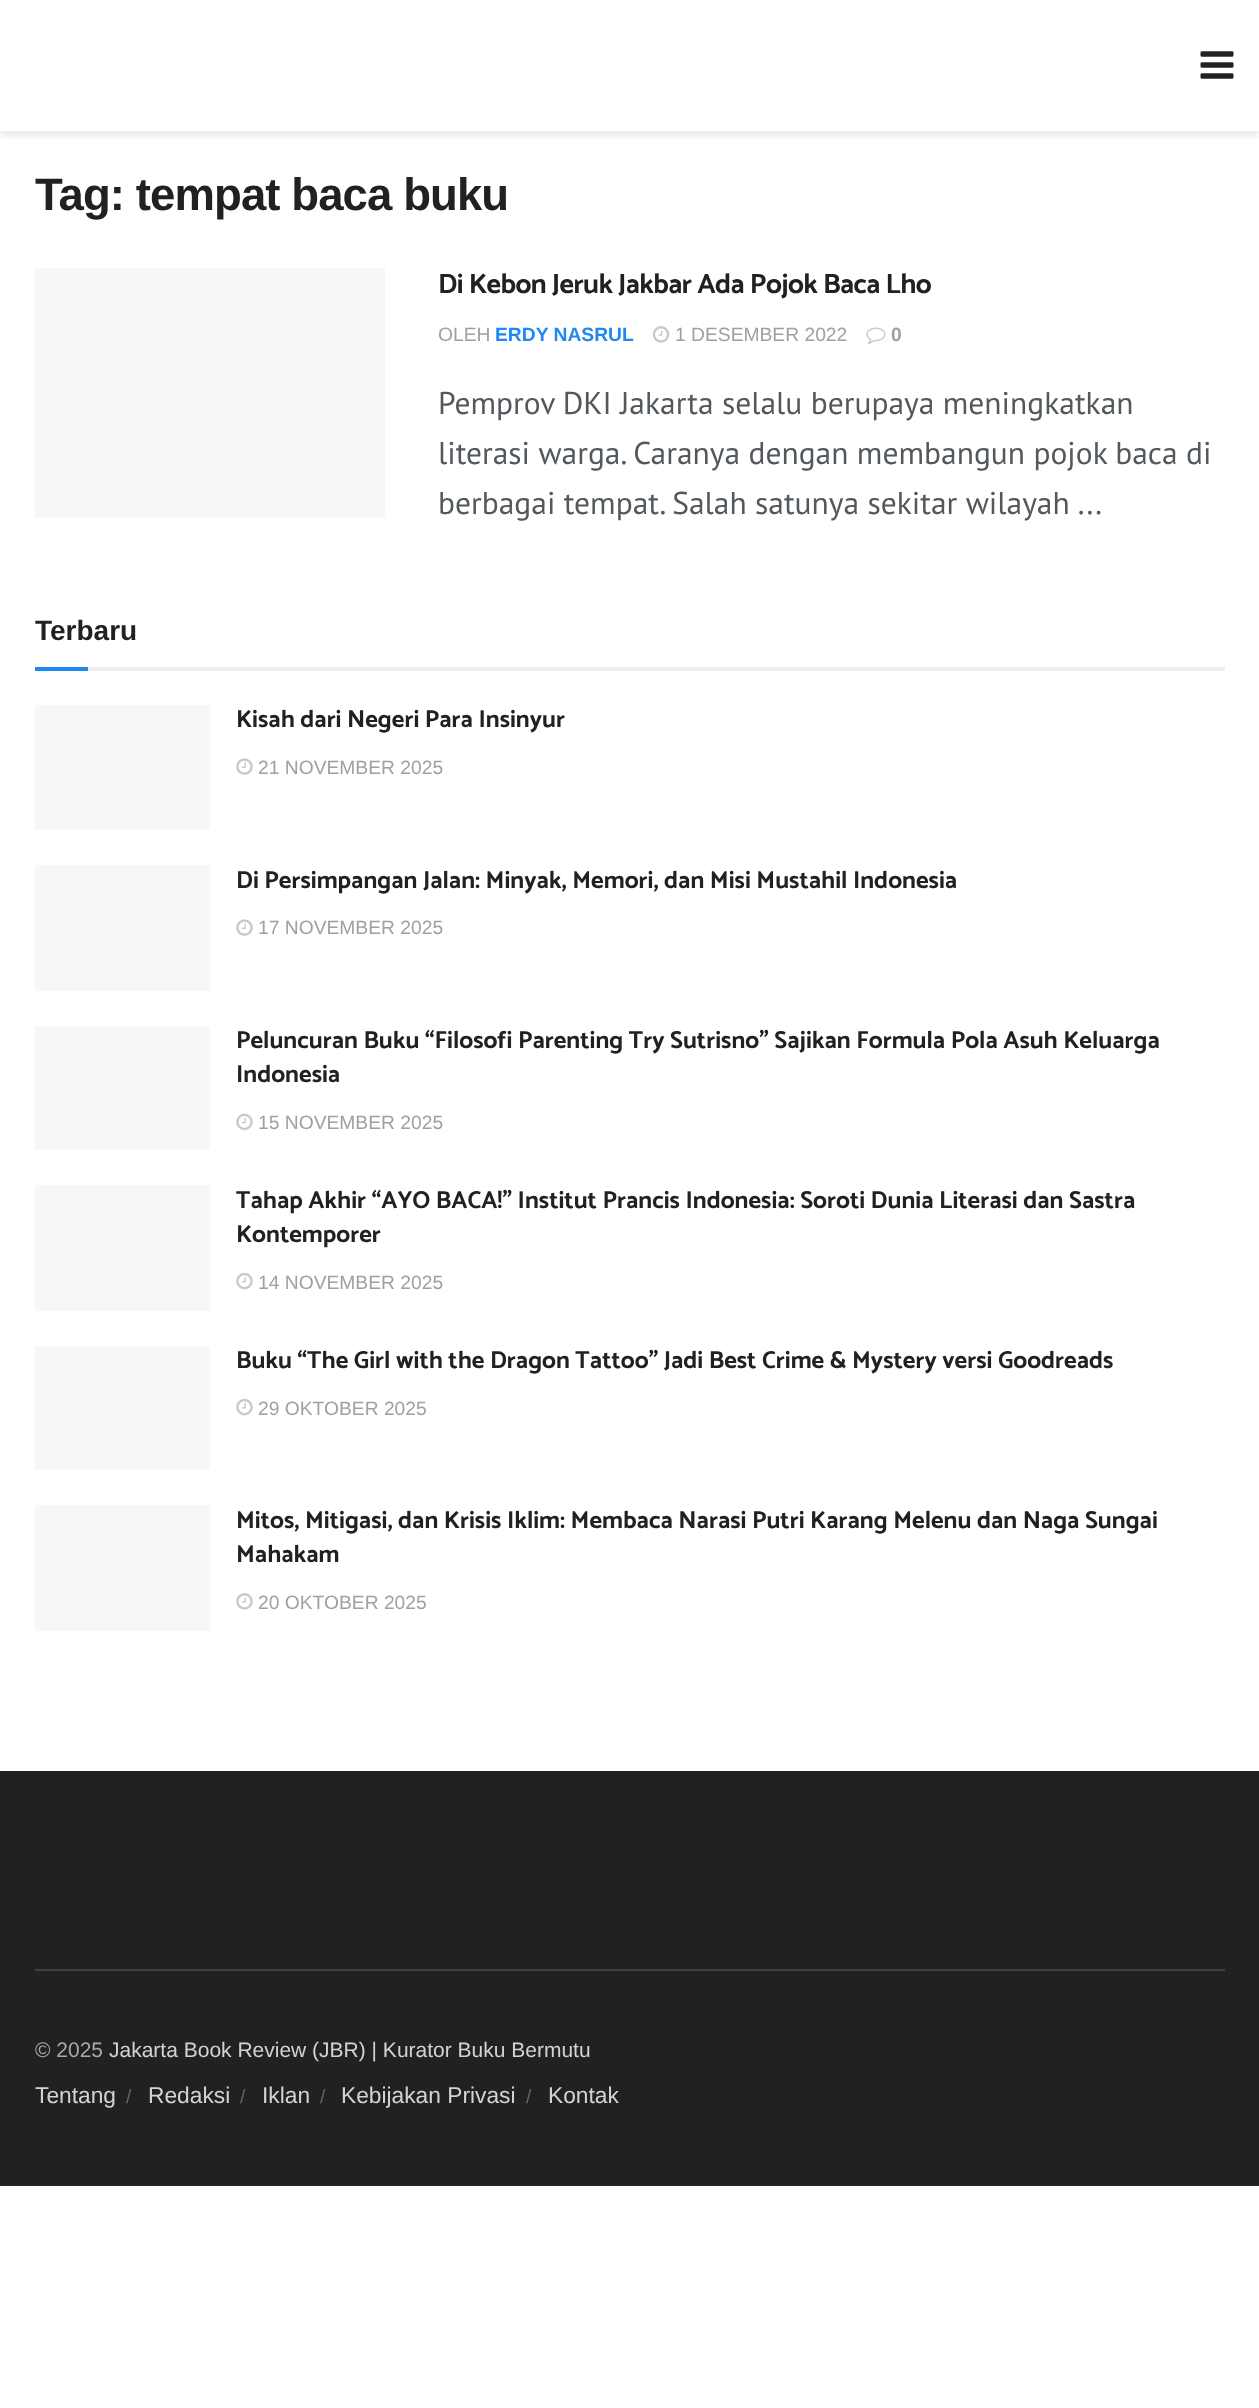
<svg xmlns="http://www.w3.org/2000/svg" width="1259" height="2408">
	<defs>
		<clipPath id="clip1"><rect x="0" y="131" width="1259" height="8" /></clipPath>
	</defs>
	<rect width="100%" height="100%" fill="#FFFFFF" />
	<g clip-path="url(#clip1)">
		<rect x="0" y="4" width="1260" height="131" fill="#000000" fill-opacity="0.1" filter="blur(5px)" />
	</g>
	<image x="1200" y="51" width="34" height="28" href="assets/img1.png" />
	<text x="35" y="210" font-family="Liberation Sans" font-size="45.5" font-weight="700" letter-spacing="-0.9" fill="#212121">Tag: tempat baca buku</text>
	<rect x="35" y="268" width="350" height="250" fill="#F7F7F7" />
	<text x="438" y="293" font-family="Catamaran" font-size="28" font-weight="700" letter-spacing="-0.55" fill="#212121">Di Kebon Jeruk Jakbar Ada Pojok Baca Lho</text>
	<text x="438" y="341" font-family="Liberation Sans" font-size="19.25" fill="#A0A0A0">OLEH</text>
	<text x="495" y="341" font-family="Liberation Sans" font-size="19.25" font-weight="700" fill="#1F89EF">ERDY NASRUL</text>
	<image x="652" y="326" width="18" height="17" href="assets/img2.png" />
	<text x="675" y="341" font-family="Liberation Sans" font-size="19.25" fill="#A0A0A0">1 DESEMBER 2022</text>
	<image x="866" y="327" width="20" height="17" href="assets/img3.png" />
	<text x="891" y="341" font-family="Liberation Sans" font-size="19.25" font-weight="700" fill="#A0A0A0">0</text>
	<g font-family="PT Sans" font-size="31.5" fill="#53585C">
		<text x="438" y="414">Pemprov DKI Jakarta selalu berupaya meningkatkan</text>
		<text x="438" y="464">literasi warga. Caranya dengan membangun pojok baca di</text>
		<text x="438" y="514">berbagai tempat. Salah satunya sekitar wilayah ...</text>
	</g>
	<rect x="88" y="667" width="1137" height="4" fill="#EEEEEE" />
	<text x="35" y="640" font-family="Liberation Sans" font-size="28" font-weight="700" fill="#212121">Terbaru</text>
	<rect x="35" y="667" width="53" height="4" fill="#1F89EF" />
	<rect x="35" y="705" width="175" height="125" fill="#F7F7F7" />
	<text x="236" y="727" font-family="Catamaran" font-size="24.5" font-weight="700" fill="#212121">Kisah dari Negeri Para Insinyur</text>
	<image x="236" y="758" width="17" height="17" href="assets/img4.png" />
	<text x="258" y="774" font-family="Liberation Sans" font-size="19.25" fill="#A0A0A0">21 NOVEMBER 2025</text>
	<rect x="35" y="865" width="175" height="126" fill="#F7F7F7" />
	<text x="236" y="888" font-family="Catamaran" font-size="24.5" font-weight="700" fill="#212121">Di Persimpangan Jalan: Minyak, Memori, dan Misi Mustahil Indonesia</text>
	<image x="236" y="919" width="17" height="17" href="assets/img4.png" />
	<text x="258" y="934" font-family="Liberation Sans" font-size="19.25" fill="#A0A0A0">17 NOVEMBER 2025</text>
	<rect x="35" y="1026" width="175" height="124" fill="#F7F7F7" />
	<g font-family="Catamaran" font-size="24.5" font-weight="700" fill="#212121">
		<text x="236" y="1048">Peluncuran Buku “Filosofi Parenting Try Sutrisno” Sajikan Formula Pola Asuh Keluarga</text>
		<text x="236" y="1082">Indonesia</text>
	</g>
	<image x="236" y="1113" width="17" height="18" href="assets/img5.png" />
	<text x="258" y="1129" font-family="Liberation Sans" font-size="19.25" fill="#A0A0A0">15 NOVEMBER 2025</text>
	<rect x="35" y="1185" width="175" height="126" fill="#F7F7F7" />
	<g font-family="Catamaran" font-size="24.5" font-weight="700" fill="#212121">
		<text x="236" y="1208">Tahap Akhir “AYO BACA!” Institut Prancis Indonesia: Soroti Dunia Literasi dan Sastra</text>
		<text x="236" y="1242">Kontemporer</text>
	</g>
	<image x="236" y="1272" width="17" height="18" href="assets/img6.png" />
	<text x="258" y="1289" font-family="Liberation Sans" font-size="19.25" fill="#A0A0A0">14 NOVEMBER 2025</text>
	<rect x="35" y="1346" width="175" height="124" fill="#F7F7F7" />
	<text x="236" y="1368" font-family="Catamaran" font-size="24.5" font-weight="700" fill="#212121">Buku “The Girl with the Dragon Tattoo” Jadi Best Crime &amp; Mystery versi Goodreads</text>
	<image x="236" y="1398" width="17" height="18" href="assets/img6.png" />
	<text x="258" y="1415" font-family="Liberation Sans" font-size="19.25" fill="#A0A0A0">29 OKTOBER 2025</text>
	<rect x="35" y="1505" width="175" height="126" fill="#F7F7F7" />
	<g font-family="Catamaran" font-size="24.5" font-weight="700" fill="#212121">
		<text x="236" y="1528">Mitos, Mitigasi, dan Krisis Iklim: Membaca Narasi Putri Karang Melenu dan Naga Sungai</text>
		<text x="236" y="1562">Mahakam</text>
	</g>
	<image x="236" y="1593" width="17" height="17" href="assets/img7.png" />
	<text x="258" y="1609" font-family="Liberation Sans" font-size="19.25" fill="#A0A0A0">20 OKTOBER 2025</text>
	<rect x="0" y="1771" width="1259" height="415" fill="#212121" />
	<rect x="35" y="1969" width="1190" height="2" fill="#424242" />
	<text x="35" y="2057" font-family="Liberation Sans" font-size="21" fill="#A8A8AA">© 2025</text>
	<text x="109" y="2057" font-family="Liberation Sans" font-size="21" fill="#D3D3D3">Jakarta Book Review (JBR) | Kurator Buku Bermutu</text>
	<text x="35" y="2103" font-family="Liberation Sans" font-size="22.75" fill="#D3D3D3">Tentang</text>
	<text x="126" y="2103" font-family="Liberation Sans" font-size="19.25" fill="#646464">/</text>
	<text x="148" y="2103" font-family="Liberation Sans" font-size="22.75" fill="#D3D3D3">Redaksi</text>
	<text x="240" y="2103" font-family="Liberation Sans" font-size="19.25" fill="#646464">/</text>
	<text x="262" y="2103" font-family="Liberation Sans" font-size="22.75" fill="#D3D3D3">Iklan</text>
	<text x="320" y="2103" font-family="Liberation Sans" font-size="19.25" fill="#646464">/</text>
	<text x="341" y="2103" font-family="Liberation Sans" font-size="22.75" fill="#D3D3D3">Kebijakan Privasi</text>
	<text x="526" y="2103" font-family="Liberation Sans" font-size="19.25" fill="#646464">/</text>
	<text x="548" y="2103" font-family="Liberation Sans" font-size="22.75" fill="#D3D3D3">Kontak</text>
</svg>
